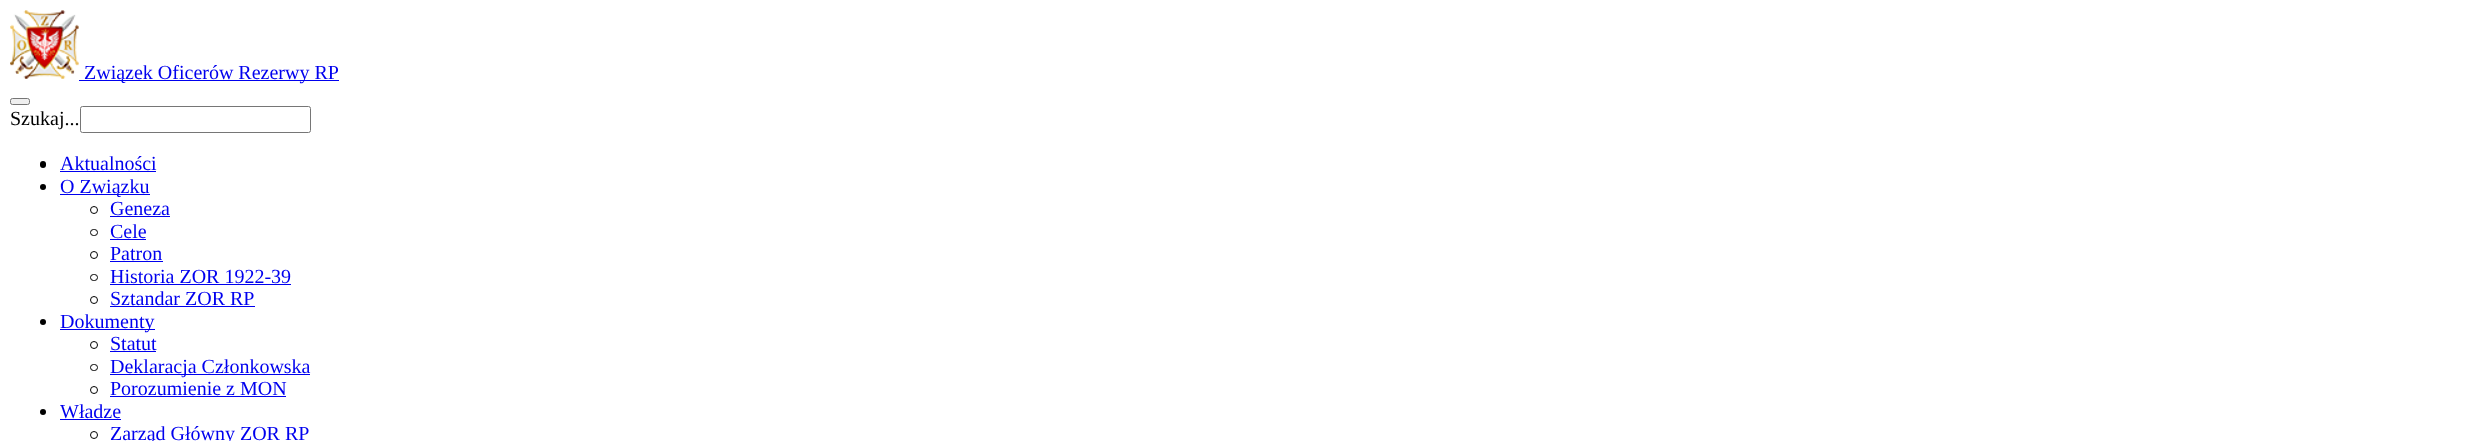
<svg xmlns="http://www.w3.org/2000/svg" width="2468" height="441">
	<rect width="100%" height="100%" fill="#FFFFFF" />
	<image x="10" y="10" width="69" height="69" href="assets/img1.png" />
	<rect x="79" y="80" width="260" height="1" fill="#0000EE" />
	<text x="84" y="79" font-family="Liberation Serif" font-size="20" fill="#0000EE">Związek Oficerów Rezerwy RP</text>
	<rect x="10.5" y="98.5" width="19" height="6" rx="2" fill="#EFEFEF" stroke="#767676" />
	<text x="10" y="125" font-family="Liberation Serif" font-size="20" fill="#000000">Szukaj...</text>
	<rect x="80.5" y="106.5" width="230" height="26" rx="2" fill="none" stroke="#767676" />
	<rect x="40" y="161" width="6" height="7" rx="3" fill="#000000" />
	<text x="60" y="170" font-family="Liberation Serif" font-size="20" fill="#0000EE">Aktualności</text>
	<rect x="60" y="171" width="96" height="1" fill="#0000EE" />
	<circle cx="43" cy="187" r="3" fill="#000000" />
	<rect x="60" y="194" width="90" height="1" fill="#0000EE" />
	<text x="60" y="193" font-family="Liberation Serif" font-size="20" fill="#0000EE">O Związku</text>
	<circle cx="94" cy="210" r="3.5" fill="none" stroke="#000000" />
	<text x="110" y="215" font-family="Liberation Serif" font-size="20" fill="#0000EE">Geneza</text>
	<rect x="110" y="216" width="60" height="1" fill="#0000EE" />
	<rect x="90.5" y="229.5" width="7" height="6" rx="3" fill="none" stroke="#000000" />
	<text x="110" y="238" font-family="Liberation Serif" font-size="20" fill="#0000EE">Cele</text>
	<rect x="110" y="239" width="36" height="1" fill="#0000EE" />
	<circle cx="94" cy="255" r="3.5" fill="none" stroke="#000000" />
	<text x="110" y="260" font-family="Liberation Serif" font-size="20" fill="#0000EE">Patron</text>
	<rect x="110" y="261" width="53" height="1" fill="#0000EE" />
	<rect x="90.5" y="274.5" width="7" height="6" rx="3" fill="none" stroke="#000000" />
	<text x="110" y="283" font-family="Liberation Serif" font-size="20" fill="#0000EE">Historia ZOR 1922-39</text>
	<rect x="110" y="284" width="181" height="1" fill="#0000EE" />
	<circle cx="94" cy="300" r="3.5" fill="none" stroke="#000000" />
	<text x="110" y="305" font-family="Liberation Serif" font-size="20" fill="#0000EE">Sztandar ZOR RP</text>
	<rect x="110" y="306" width="145" height="1" fill="#0000EE" />
	<circle cx="43" cy="322" r="3" fill="#000000" />
	<rect x="60" y="329" width="95" height="1" fill="#0000EE" />
	<text x="60" y="328" font-family="Liberation Serif" font-size="20" fill="#0000EE">Dokumenty</text>
	<circle cx="94" cy="345" r="3.5" fill="none" stroke="#000000" />
	<text x="110" y="350" font-family="Liberation Serif" font-size="20" fill="#0000EE">Statut</text>
	<rect x="110" y="351" width="46" height="1" fill="#0000EE" />
	<rect x="90.5" y="364.5" width="7" height="6" rx="3" fill="none" stroke="#000000" />
	<rect x="110" y="374" width="200" height="1" fill="#0000EE" />
	<text x="110" y="373" font-family="Liberation Serif" font-size="20" fill="#0000EE">Deklaracja Członkowska</text>
	<circle cx="94" cy="390" r="3.5" fill="none" stroke="#000000" />
	<text x="110" y="395" font-family="Liberation Serif" font-size="20" fill="#0000EE">Porozumienie z MON</text>
	<rect x="110" y="396" width="176" height="1" fill="#0000EE" />
	<circle cx="43" cy="412" r="3" fill="#000000" />
	<text x="60" y="418" font-family="Liberation Serif" font-size="20" fill="#0000EE">Władze</text>
	<rect x="60" y="419" width="61" height="1" fill="#0000EE" />
	<circle cx="94" cy="435" r="3.5" fill="none" stroke="#000000" />
	<text x="110" y="440" font-family="Liberation Serif" font-size="20" fill="#0000EE">Zarząd Główny ZOR RP</text>
</svg>
